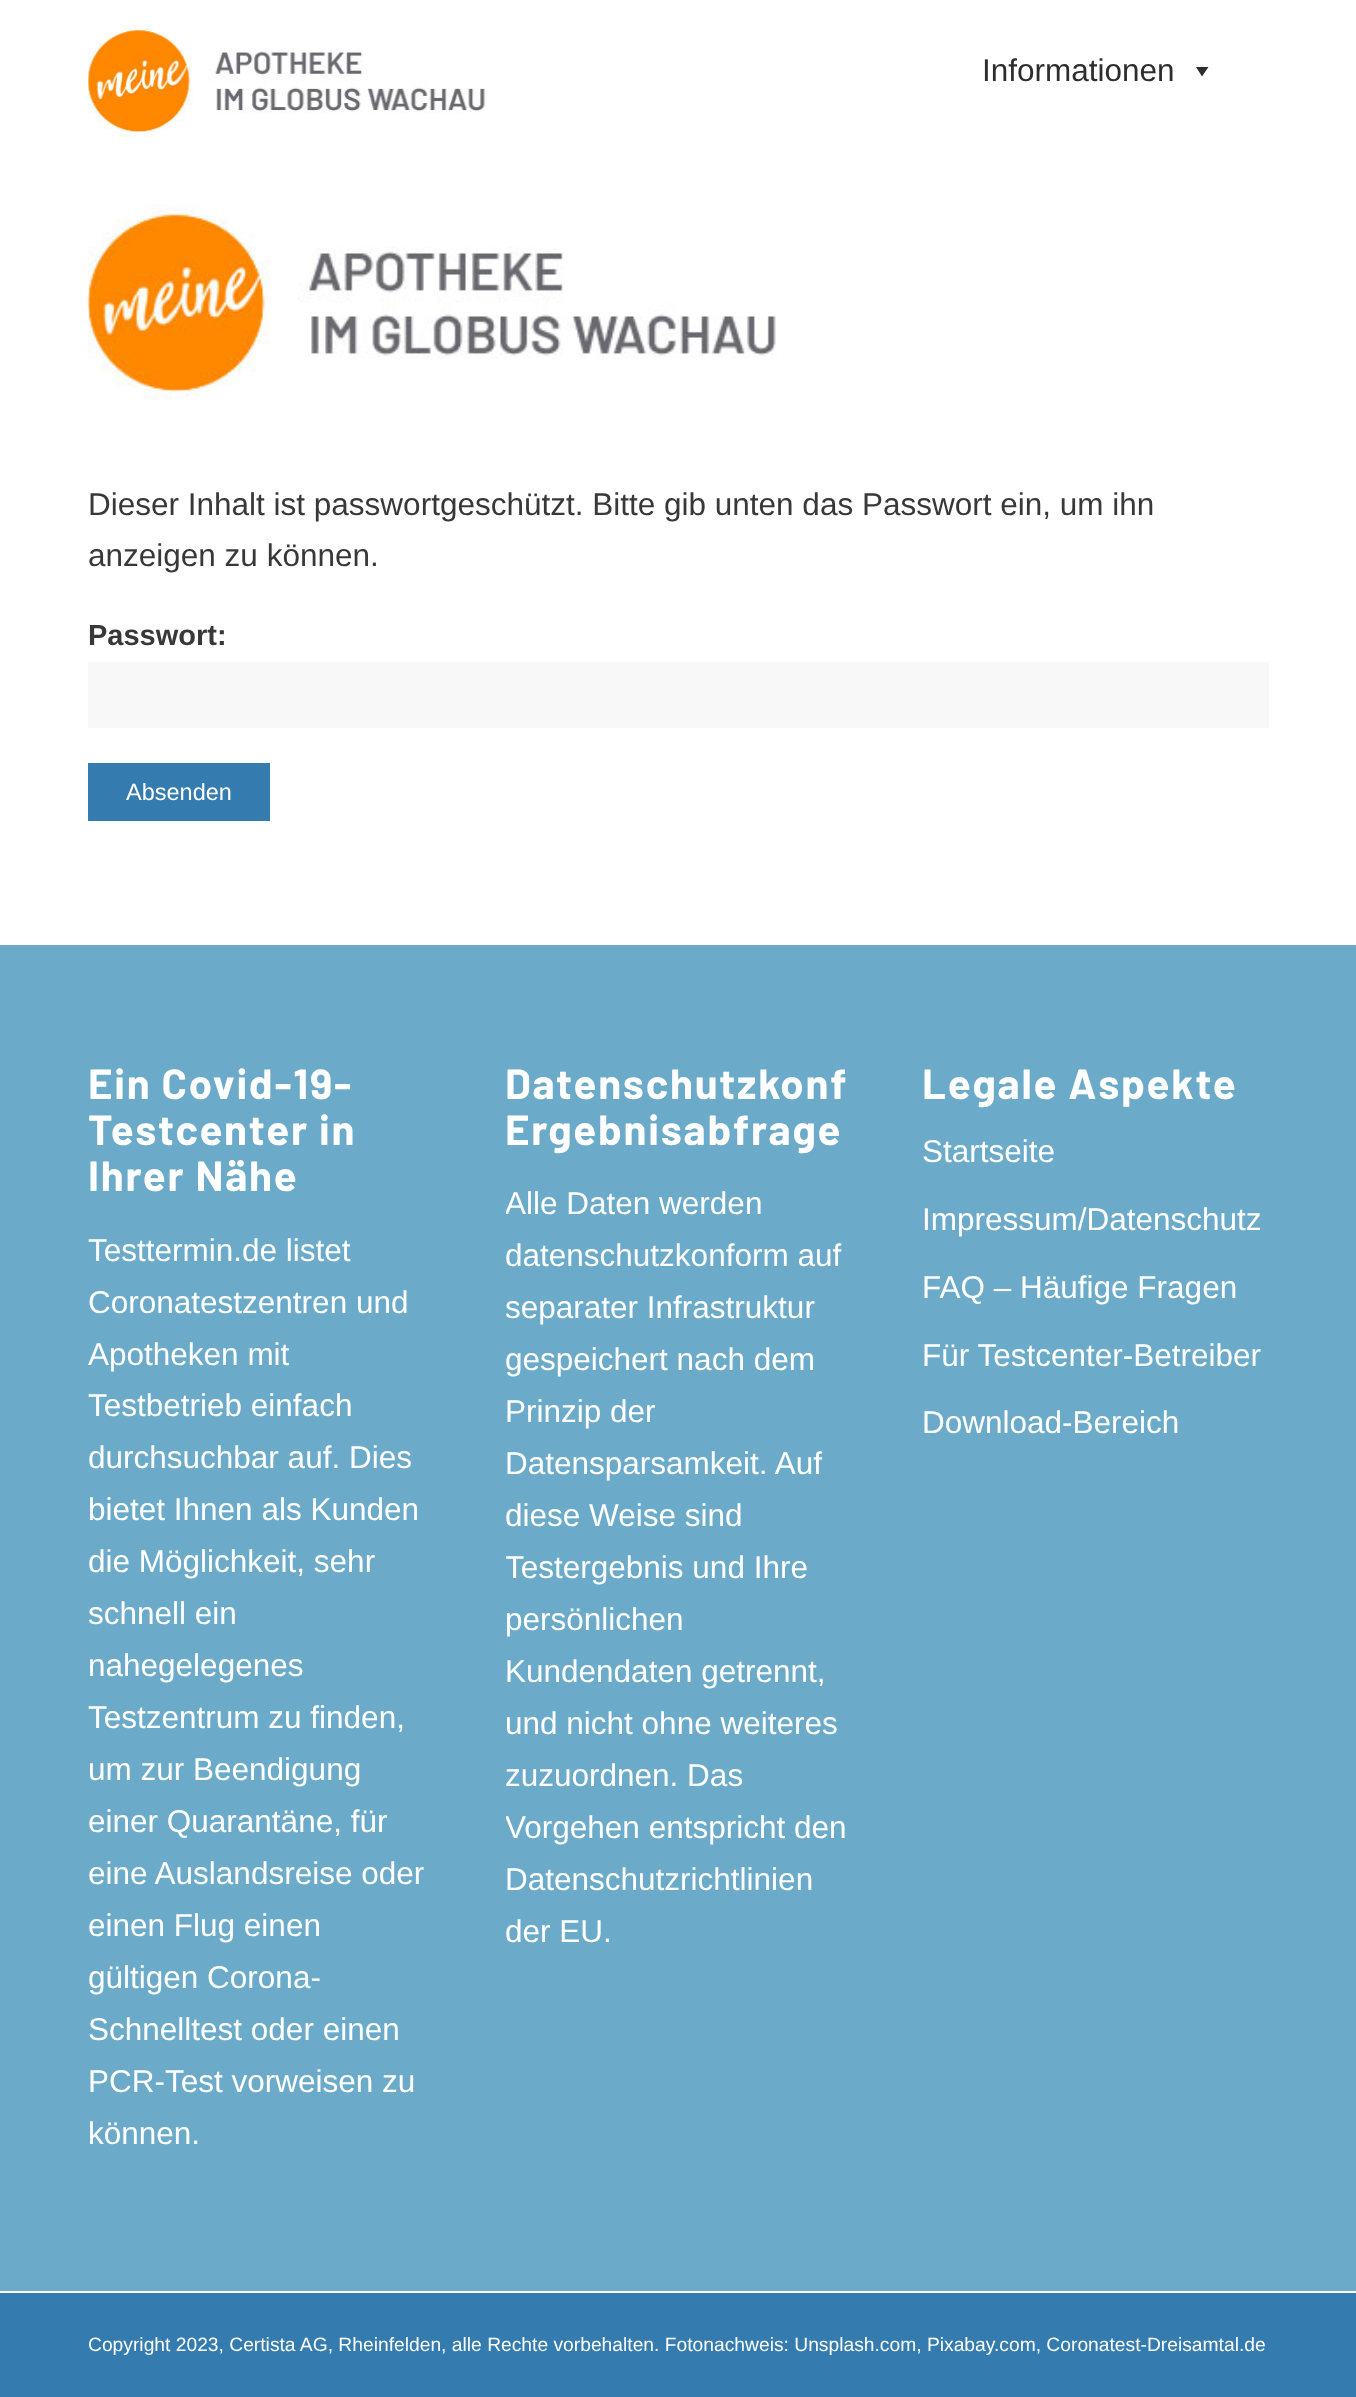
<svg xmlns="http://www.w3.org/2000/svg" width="1356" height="2397">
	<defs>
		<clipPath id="clip1"><rect x="506" y="1024" width="346" height="962" /></clipPath>
	</defs>
	<rect width="100%" height="100%" fill="#FFFFFF" />
	<image x="88" y="24" width="398" height="114" href="assets/img1.png" />
	<text x="982" y="81" font-family="Liberation Sans" font-size="31.5" fill="#2D2D2D">Informationen</text>
	<path d="M1208.5 67L1202 76.5L1196 67Z" fill="#2D2D2D" />
	<image x="87" y="204" width="690" height="197" href="assets/img2.png" />
	<g font-family="Liberation Sans" font-size="31.5" fill="#383838">
		<text x="88" y="515">Dieser Inhalt ist passwortgeschützt. Bitte gib unten das Passwort ein, um ihn</text>
		<text x="88" y="566">anzeigen zu können.</text>
	</g>
	<text x="88" y="645" font-family="Liberation Sans" font-size="29" font-weight="700" fill="#383838">Passwort:</text>
	<rect x="88" y="662" width="1181" height="66" fill="#F8F8F8" />
	<rect x="88" y="763" width="182" height="58" fill="#347CAF" />
	<text x="126" y="800" font-family="Liberation Sans" font-size="23.5" fill="#FFFFFF">Absenden</text>
	<rect x="0" y="945" width="1356" height="1346" fill="#6BABC9" />
	<g font-family="Barlow" font-size="42" font-weight="700" letter-spacing="1.75" fill="#FFFFFF">
		<text x="88" y="1099">Ein Covid-19-</text>
		<text x="88" y="1145">Testcenter in</text>
		<text x="88" y="1191">Ihrer Nähe</text>
	</g>
	<g font-family="Liberation Sans" font-size="31.5" fill="#FFFFFF">
		<text x="88" y="1261">Testtermin.de listet</text>
		<text x="88" y="1313">Coronatestzentren und</text>
		<text x="88" y="1365">Apotheken mit</text>
		<text x="88" y="1416">Testbetrieb einfach</text>
		<text x="88" y="1468">durchsuchbar auf. Dies</text>
		<text x="88" y="1520">bietet Ihnen als Kunden</text>
		<text x="88" y="1572">die Möglichkeit, sehr</text>
		<text x="88" y="1624">schnell ein</text>
		<text x="88" y="1676">nahegelegenes</text>
		<text x="88" y="1728">Testzentrum zu finden,</text>
		<text x="88" y="1780">um zur Beendigung</text>
		<text x="88" y="1832">einer Quarantäne, für</text>
		<text x="88" y="1884">eine Auslandsreise oder</text>
		<text x="88" y="1936">einen Flug einen</text>
		<text x="88" y="1988">gültigen Corona-</text>
		<text x="88" y="2040">Schnelltest oder einen</text>
		<text x="88" y="2092">PCR-Test vorweisen zu</text>
		<text x="88" y="2144">können.</text>
	</g>
	<g font-family="Barlow" font-size="42" font-weight="700" letter-spacing="1.75" fill="#FFFFFF">
		<text x="505" y="1099">Datenschutzkonf</text>
		<text x="505" y="1145">Ergebnisabfrage</text>
	</g>
	<g clip-path="url(#clip1)">
		<text x="505" y="1214" font-family="Liberation Sans" font-size="31.5" fill="#FFFFFF">Alle Daten werden</text>
	</g>
	<g font-family="Liberation Sans" font-size="31.5" fill="#FFFFFF">
		<text x="505" y="1266">datenschutzkonform auf</text>
		<text x="505" y="1318">separater Infrastruktur</text>
		<text x="505" y="1370">gespeichert nach dem</text>
		<text x="505" y="1422">Prinzip der</text>
		<text x="505" y="1474">Datensparsamkeit. Auf</text>
		<text x="505" y="1526">diese Weise sind</text>
	</g>
	<g clip-path="url(#clip1)">
		<text x="505" y="1578" font-family="Liberation Sans" font-size="31.5" fill="#FFFFFF">Testergebnis und Ihre</text>
	</g>
	<g font-family="Liberation Sans" font-size="31.5" fill="#FFFFFF">
		<text x="505" y="1630">persönlichen</text>
		<text x="505" y="1682">Kundendaten getrennt,</text>
		<text x="505" y="1734">und nicht ohne weiteres</text>
		<text x="505" y="1786">zuzuordnen. Das</text>
	</g>
	<g clip-path="url(#clip1)">
		<text x="505" y="1838" font-family="Liberation Sans" font-size="31.5" fill="#FFFFFF">Vorgehen entspricht den</text>
	</g>
	<g font-family="Liberation Sans" font-size="31.5" fill="#FFFFFF">
		<text x="505" y="1890">Datenschutzrichtlinien</text>
		<text x="505" y="1942">der EU.</text>
	</g>
	<text x="922" y="1099" font-family="Barlow" font-size="42" font-weight="700" letter-spacing="1.75" fill="#FFFFFF">Legale Aspekte</text>
	<g font-family="Liberation Sans" font-size="31.5" fill="#FFFFFF">
		<text x="922" y="1162">Startseite</text>
		<text x="922" y="1230">Impressum/Datenschutz</text>
		<text x="922" y="1298">FAQ – Häufige Fragen</text>
		<text x="922" y="1366">Für Testcenter-Betreiber</text>
		<text x="922" y="1433">Download-Bereich</text>
	</g>
	<rect x="0" y="2293" width="1356" height="104" fill="#347CAF" />
	<text x="88" y="2351" font-family="Liberation Sans" font-size="19.25" fill="#FFFFFF">Copyright 2023, Certista AG, Rheinfelden, alle Rechte vorbehalten. Fotonachweis: Unsplash.com, Pixabay.com, Coronatest-Dreisamtal.de</text>
</svg>
